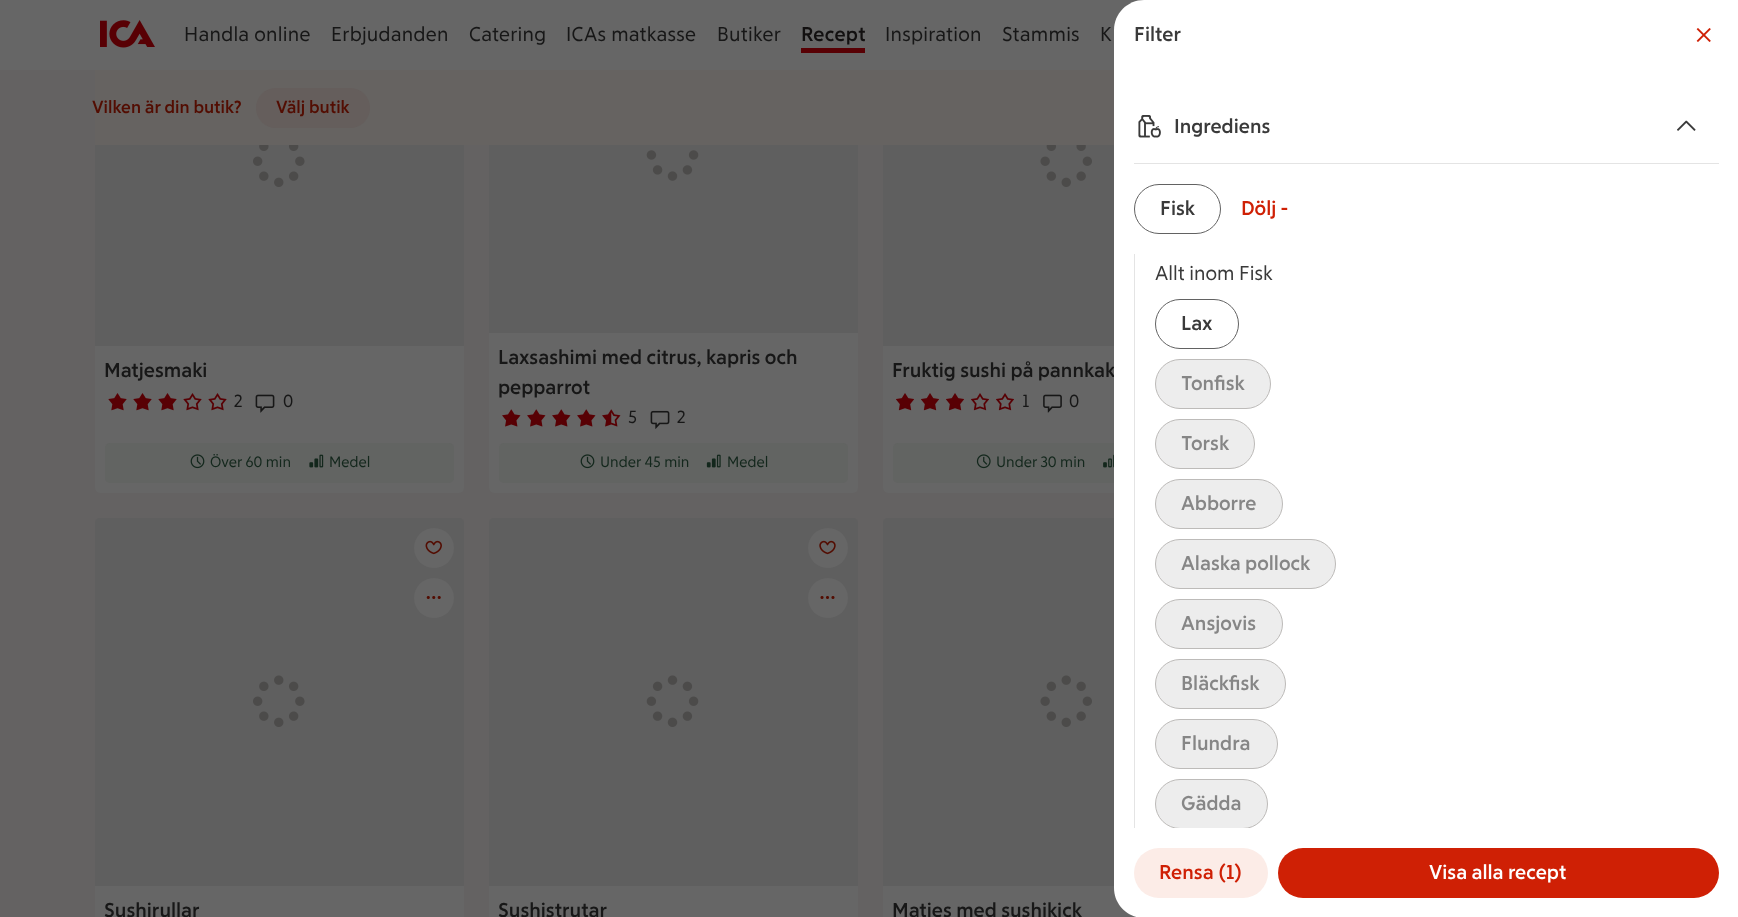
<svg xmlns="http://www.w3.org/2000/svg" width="1738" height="917">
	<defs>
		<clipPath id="clip1"><rect x="1114" y="70" width="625" height="758" /></clipPath>
	</defs>
	<rect width="100%" height="100%" fill="#646262" />
	<rect x="95" y="-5" width="369" height="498" rx="5" fill="#666666" />
	<rect x="489" y="-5" width="369" height="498" rx="5" fill="#666666" />
	<rect x="0" y="0" width="883" height="70" fill="#666666" />
	<image x="100" y="20" width="55" height="28" href="assets/img1.png" />
	<g font-family="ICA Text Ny" font-size="20" letter-spacing="0.25" fill="#171717">
		<text x="184" y="41">Handla online</text>
		<text x="331" y="41">Erbjudanden</text>
		<text x="469" y="41">Catering</text>
		<text x="566" y="41">ICAs matkasse</text>
		<text x="717" y="41">Butiker</text>
	</g>
	<text x="801" y="41" font-family="ICA Text Ny" font-size="20" font-weight="700" letter-spacing="0.25" fill="#121010">Recept</text>
	<rect x="801" y="48" width="64" height="5" fill="#580004" />
	<rect x="883" y="-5" width="368" height="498" rx="5" fill="#666666" />
	<g font-family="ICA Text Ny" font-size="20" letter-spacing="0.25" fill="#171717">
		<text x="885" y="41">Inspiration</text>
		<text x="1002" y="41">Stammis</text>
		<text x="1100" y="41">K</text>
	</g>
	<rect x="95" y="70" width="1019" height="75" fill="#666361" />
	<text x="92" y="113" font-family="ICA Text Ny" font-size="17.5" font-weight="700" fill="#530D02">Vilken är din butik?</text>
	<rect x="256" y="88" width="114" height="40" rx="20" fill="#655E5C" />
	<text x="276" y="113" font-family="ICA Text Ny" font-size="17.5" font-weight="700" fill="#530D02">Välj butik</text>
	<rect x="95" y="145" width="369" height="201" fill="#5F5F5F" />
	<image x="253" y="145" width="52" height="42" href="assets/img2.png" />
	<text x="104" y="377" font-family="ICA Text Ny" font-size="20" font-weight="700" fill="#171717">Matjesmaki</text>
	<image x="108" y="393" width="19" height="18" href="assets/img3.png" />
	<image x="133" y="393" width="19" height="18" href="assets/img3.png" />
	<image x="158" y="393" width="19" height="18" href="assets/img3.png" />
	<image x="183" y="393" width="19" height="18" href="assets/img4.png" />
	<image x="208" y="393" width="19" height="18" href="assets/img4.png" />
	<text x="234" y="407" font-family="ICA Text Ny" font-size="17.5" fill="#171717">2</text>
	<image x="255" y="394" width="20" height="19" href="assets/img5.png" />
	<text x="283" y="407" font-family="ICA Text Ny" font-size="17.5" fill="#171717">0</text>
	<rect x="105" y="443" width="349" height="40" rx="5" fill="#626462" />
	<image x="190" y="454" width="15" height="15" href="assets/img6.png" />
	<text x="210" y="467" font-family="ICA Text Ny" font-size="15" fill="#13271C">Över 60 min</text>
	<image x="309" y="454" width="15" height="14" href="assets/img7.png" />
	<text x="329" y="467" font-family="ICA Text Ny" font-size="15" fill="#13271C">Medel</text>
	<rect x="489" y="145" width="369" height="188" fill="#5F5F5F" />
	<image x="646" y="150" width="53" height="31" href="assets/img8.png" />
	<g font-family="ICA Text Ny" font-size="20" font-weight="700" fill="#171717">
		<text x="498" y="364">Laxsashimi med citrus, kapris och</text>
		<text x="498" y="394">pepparrot</text>
	</g>
	<image x="502" y="409" width="19" height="18" href="assets/img9.png" />
	<image x="527" y="409" width="19" height="18" href="assets/img9.png" />
	<image x="552" y="409" width="19" height="18" href="assets/img9.png" />
	<image x="577" y="409" width="19" height="18" href="assets/img9.png" />
	<image x="602" y="409" width="19" height="18" href="assets/img10.png" />
	<text x="628" y="423" font-family="ICA Text Ny" font-size="17.5" fill="#171717">5</text>
	<image x="650" y="410" width="20" height="19" href="assets/img11.png" />
	<text x="677" y="423" font-family="ICA Text Ny" font-size="17.5" fill="#171717">2</text>
	<rect x="499" y="443" width="349" height="40" rx="5" fill="#626462" />
	<image x="580" y="454" width="15" height="15" href="assets/img6.png" />
	<text x="600" y="467" font-family="ICA Text Ny" font-size="15" fill="#13271C">Under 45 min</text>
	<image x="706" y="454" width="15" height="14" href="assets/img12.png" />
	<text x="727" y="467" font-family="ICA Text Ny" font-size="15" fill="#13271C">Medel</text>
	<rect x="883" y="145" width="231" height="201" fill="#5F5F5F" />
	<image x="1040" y="145" width="52" height="42" href="assets/img13.png" />
	<text x="892" y="377" font-family="ICA Text Ny" font-size="20" font-weight="700" fill="#171717">Fruktig sushi på pannkak</text>
	<image x="896" y="393" width="18" height="18" href="assets/img14.png" />
	<image x="921" y="393" width="18" height="18" href="assets/img14.png" />
	<image x="946" y="393" width="18" height="18" href="assets/img14.png" />
	<image x="971" y="393" width="18" height="18" href="assets/img15.png" />
	<image x="996" y="393" width="18" height="18" href="assets/img15.png" />
	<text x="1022" y="407" font-family="ICA Text Ny" font-size="17.5" fill="#171717">1</text>
	<image x="1043" y="394" width="19" height="19" href="assets/img16.png" />
	<text x="1069" y="407" font-family="ICA Text Ny" font-size="17.5" fill="#171717">0</text>
	<rect x="893" y="443" width="348" height="40" rx="5" fill="#626462" />
	<image x="976" y="454" width="15" height="15" href="assets/img17.png" />
	<text x="996" y="467" font-family="ICA Text Ny" font-size="15" fill="#13271C">Under 30 min</text>
	<image x="1103" y="454" width="11" height="14" href="assets/img18.png" />
	<rect x="95" y="518" width="369" height="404" rx="5" fill="#666666" />
	<path d="M100 518H459C462 518 464 520 464 523V886H95V523C95 520 97 518 100 518Z" fill="#5F5F5F" />
	<image x="253" y="675" width="52" height="52" href="assets/img19.png" />
	<circle cx="434" cy="548" r="20" fill="#666666" />
	<image x="425" y="540" width="17" height="15" href="assets/img20.png" />
	<circle cx="434" cy="598" r="20" fill="#666666" />
	<image x="426" y="596" width="15" height="3" href="assets/img21.png" />
	<text x="104" y="917" font-family="ICA Text Ny" font-size="20" font-weight="700" fill="#171717">Sushirullar</text>
	<rect x="489" y="518" width="369" height="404" rx="5" fill="#666666" />
	<path d="M494 518H853C856 518 858 520 858 523V886H489V523C489 520 491 518 494 518Z" fill="#5F5F5F" />
	<image x="646" y="675" width="53" height="52" href="assets/img22.png" />
	<circle cx="828" cy="548" r="20" fill="#666666" />
	<image x="819" y="540" width="17" height="15" href="assets/img23.png" />
	<circle cx="828" cy="598" r="20" fill="#666666" />
	<image x="820" y="596" width="15" height="3" href="assets/img24.png" />
	<text x="498" y="917" font-family="ICA Text Ny" font-size="20" font-weight="700" fill="#171717">Sushistrutar</text>
	<rect x="883" y="518" width="368" height="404" rx="5" fill="#666666" />
	<path d="M888 518H1246C1249 518 1251 520 1251 523V886H883V523C883 520 885 518 888 518Z" fill="#5F5F5F" />
	<image x="1040" y="675" width="52" height="52" href="assets/img25.png" />
	<text x="892" y="917" font-family="ICA Text Ny" font-size="20" font-weight="700" fill="#171717">Matjes med sushikick</text>
	<path d="M1144 0H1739V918H1144C1127.5 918 1114 904.5 1114 888V30C1114 13.5 1127.5 0 1144 0Z" fill="#FFFFFF" />
	<text x="1134" y="41" font-family="ICA Text Ny" font-size="20" font-weight="700" fill="#3A3A3A">Filter</text>
	<image x="1696" y="28" width="15" height="14" href="assets/img26.png" />
	<rect x="1134" y="163" width="585" height="1" fill="#E4E4E4" />
	<image x="1138" y="115" width="23" height="23" href="assets/img27.png" />
	<text x="1174" y="133" font-family="ICA Text Ny" font-size="20" font-weight="700" fill="#3A3A3A">Ingrediens</text>
	<image x="1677" y="120" width="19" height="11" href="assets/img28.png" />
	<rect x="1134.5" y="184.5" width="86" height="49" rx="24.5" fill="none" stroke="#626262" />
	<text x="1160" y="215" font-family="ICA Text Ny" font-size="20" font-weight="700" fill="#3A3A3A">Fisk</text>
	<text x="1241" y="215" font-family="ICA Text Ny" font-size="20" font-weight="700" fill="#CF2005">Dölj -</text>
	<rect x="1134" y="254" width="1" height="574" fill="#E4E4E4" />
	<text x="1155" y="280" font-family="ICA Text Ny" font-size="20" fill="#3A3A3A">Allt inom Fisk</text>
	<rect x="1155.5" y="299.5" width="83" height="49" rx="24.5" fill="none" stroke="#626262" />
	<text x="1181" y="330" font-family="ICA Text Ny" font-size="20" font-weight="700" fill="#3A3A3A">Lax</text>
	<rect x="1155.5" y="359.5" width="115" height="49" rx="24.5" fill="#EDEDED" stroke="#BDBBB9" />
	<text x="1181" y="390" font-family="ICA Text Ny" font-size="20" font-weight="700" fill="#868686">Tonfisk</text>
	<rect x="1155.5" y="419.5" width="99" height="49" rx="24.5" fill="#EDEDED" stroke="#BDBBB9" />
	<text x="1181" y="450" font-family="ICA Text Ny" font-size="20" font-weight="700" fill="#868686">Torsk</text>
	<rect x="1155.5" y="479.5" width="127" height="49" rx="24.5" fill="#EDEDED" stroke="#BDBBB9" />
	<text x="1181" y="510" font-family="ICA Text Ny" font-size="20" font-weight="700" fill="#868686">Abborre</text>
	<rect x="1155.5" y="539.5" width="180" height="49" rx="24.5" fill="#EDEDED" stroke="#BDBBB9" />
	<text x="1181" y="570" font-family="ICA Text Ny" font-size="20" font-weight="700" fill="#868686">Alaska pollock</text>
	<rect x="1155.5" y="599.5" width="127" height="49" rx="24.5" fill="#EDEDED" stroke="#BDBBB9" />
	<text x="1181" y="630" font-family="ICA Text Ny" font-size="20" font-weight="700" fill="#868686">Ansjovis</text>
	<rect x="1155.5" y="659.5" width="130" height="49" rx="24.5" fill="#EDEDED" stroke="#BDBBB9" />
	<text x="1181" y="690" font-family="ICA Text Ny" font-size="20" font-weight="700" fill="#868686">Bläckfisk</text>
	<rect x="1155.5" y="719.5" width="122" height="49" rx="24.5" fill="#EDEDED" stroke="#BDBBB9" />
	<text x="1181" y="750" font-family="ICA Text Ny" font-size="20" font-weight="700" fill="#868686">Flundra</text>
	<g clip-path="url(#clip1)">
		<rect x="1155.5" y="779.5" width="112" height="49" rx="24.5" fill="#EDEDED" stroke="#BDBBB9" />
	</g>
	<text x="1181" y="810" font-family="ICA Text Ny" font-size="20" font-weight="700" fill="#868686">Gädda</text>
	<rect x="1134" y="848" width="134" height="50" rx="25" fill="#FCECE7" />
	<text x="1159" y="879" font-family="ICA Text Ny" font-size="20" font-weight="700" fill="#CF2005">Rensa (1)</text>
	<rect x="1278" y="848" width="441" height="50" rx="25" fill="#CF2005" />
	<text x="1429" y="879" font-family="ICA Text Ny" font-size="20" font-weight="700" fill="#FFFFFF">Visa alla recept</text>
</svg>
